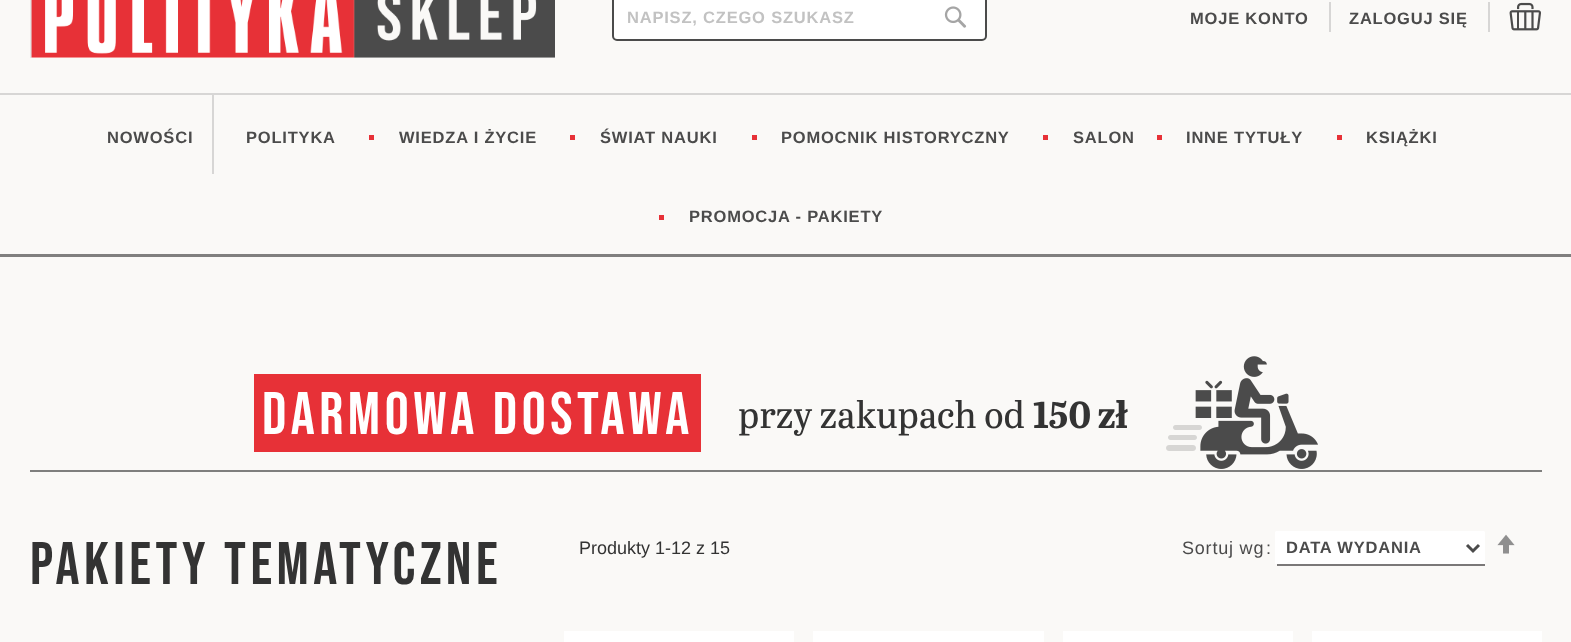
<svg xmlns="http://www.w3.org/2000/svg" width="1571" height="642">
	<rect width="100%" height="100%" fill="#FAF9F7" />
	<image x="30" y="0" width="525" height="58" href="assets/img1.png" />
	<rect x="614" y="-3" width="372" height="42" rx="3" fill="#FFFFFF" />
	<rect x="613" y="-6" width="373" height="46" rx="4" fill="none" stroke="#4B4B4B" stroke-width="2" />
	<text x="627" y="23" font-family="Liberation Sans" font-size="16.5" font-weight="700" letter-spacing="0.8" fill="#C2C2C2">NAPISZ, CZEGO SZUKASZ</text>
	<image x="944" y="6" width="23" height="22" href="assets/img2.png" />
	<rect x="1329" y="2" width="2" height="30" fill="#D7D6D5" />
	<text x="1190" y="24" font-family="Liberation Sans" font-size="16.5" font-weight="700" letter-spacing="0.8" fill="#4B4B4B">MOJE KONTO</text>
	<rect x="1488" y="2" width="2" height="30" fill="#D7D6D5" />
	<text x="1349" y="24" font-family="Liberation Sans" font-size="16.5" font-weight="700" letter-spacing="0.8" fill="#4B4B4B">ZALOGUJ SIĘ</text>
	<image x="1509" y="2" width="32" height="29" href="assets/img3.png" />
	<rect x="0" y="254" width="1571" height="3" fill="#807F7F" />
	<rect x="0" y="93" width="1571" height="2" fill="#D7D6D5" />
	<rect x="212" y="95" width="2" height="79" fill="#D7D6D5" />
	<g font-family="Liberation Sans" font-size="16.5" font-weight="700" letter-spacing="0.8" fill="#4B4B4B">
		<text x="107" y="143">NOWOŚCI</text>
		<text x="246" y="143">POLITYKA</text>
	</g>
	<rect x="369" y="135" width="5" height="5" fill="#E73137" />
	<text x="399" y="143" font-family="Liberation Sans" font-size="16.5" font-weight="700" letter-spacing="0.8" fill="#4B4B4B">WIEDZA I ŻYCIE</text>
	<rect x="570" y="135" width="5" height="5" fill="#E73137" />
	<text x="600" y="143" font-family="Liberation Sans" font-size="16.5" font-weight="700" letter-spacing="0.8" fill="#4B4B4B">ŚWIAT NAUKI</text>
	<rect x="752" y="135" width="5" height="5" fill="#E73137" />
	<text x="781" y="143" font-family="Liberation Sans" font-size="16.5" font-weight="700" letter-spacing="0.8" fill="#4B4B4B">POMOCNIK HISTORYCZNY</text>
	<rect x="1043" y="135" width="5" height="5" fill="#E73137" />
	<text x="1073" y="143" font-family="Liberation Sans" font-size="16.5" font-weight="700" letter-spacing="0.8" fill="#4B4B4B">SALON</text>
	<rect x="1157" y="135" width="5" height="5" fill="#E73137" />
	<text x="1186" y="143" font-family="Liberation Sans" font-size="16.5" font-weight="700" letter-spacing="0.8" fill="#4B4B4B">INNE TYTUŁY</text>
	<rect x="1337" y="135" width="5" height="5" fill="#E73137" />
	<text x="1366" y="143" font-family="Liberation Sans" font-size="16.5" font-weight="700" letter-spacing="0.8" fill="#4B4B4B">KSIĄŻKI</text>
	<rect x="659" y="215" width="5" height="5" fill="#E73137" />
	<text x="689" y="222" font-family="Liberation Sans" font-size="16.5" font-weight="700" letter-spacing="0.8" fill="#4B4B4B">PROMOCJA - PAKIETY</text>
	<rect x="30" y="470" width="1512" height="2" fill="#7F7F7E" />
	<rect x="254" y="374" width="447" height="78" fill="#E73137" />
	<text x="262" y="434" font-family="Bebas Neue" font-size="60" font-weight="700" letter-spacing="4.5" fill="#FFFFFF">DARMOWA DOSTAWA</text>
	<text x="738" y="428" font-family="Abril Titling" font-size="37.5" fill="#333333">przy zakupach od</text>
	<text x="1033" y="428" font-family="Abril Titling" font-size="37.5" font-weight="700" fill="#333333">150 zł</text>
	<image x="1166" y="356" width="152" height="113" href="assets/img4.png" />
	<text x="30" y="584" font-family="Bebas Neue" font-size="60" font-weight="700" letter-spacing="4.5" fill="#333333">PAKIETY TEMATYCZNE</text>
	<text x="579" y="554" font-family="Liberation Sans" font-size="18" fill="#333333">Produkty 1-12 z 15</text>
	<g font-family="Liberation Sans" font-size="18" letter-spacing="0.8" fill="#4B4B4B">
		<text x="1182" y="554">Sortuj wg</text>
		<text x="1266" y="554">:</text>
	</g>
	<path d="M1276 531H1484C1484 531 1485 532 1485 532V564H1275V532C1275 532 1276 531 1276 531Z" fill="#FFFFFF" />
	<rect x="1277" y="564" width="208" height="2" fill="#7A7878" />
	<path d="M1467 545L1473 551L1479 545" fill="none" stroke="#4B4B4B" stroke-width="3" />
	<text x="1286" y="553" font-family="Liberation Sans" font-size="16.5" font-weight="700" letter-spacing="0.8" fill="#4B4B4B">DATA WYDANIA</text>
	<image x="1497" y="534" width="18" height="20" href="assets/img5.png" />
	<rect x="564" y="631" width="230" height="11" fill="#FFFFFF" />
	<rect x="813" y="631" width="231" height="11" fill="#FFFFFF" />
	<rect x="1063" y="631" width="230" height="11" fill="#FFFFFF" />
	<rect x="1312" y="631" width="230" height="11" fill="#FFFFFF" />
</svg>
